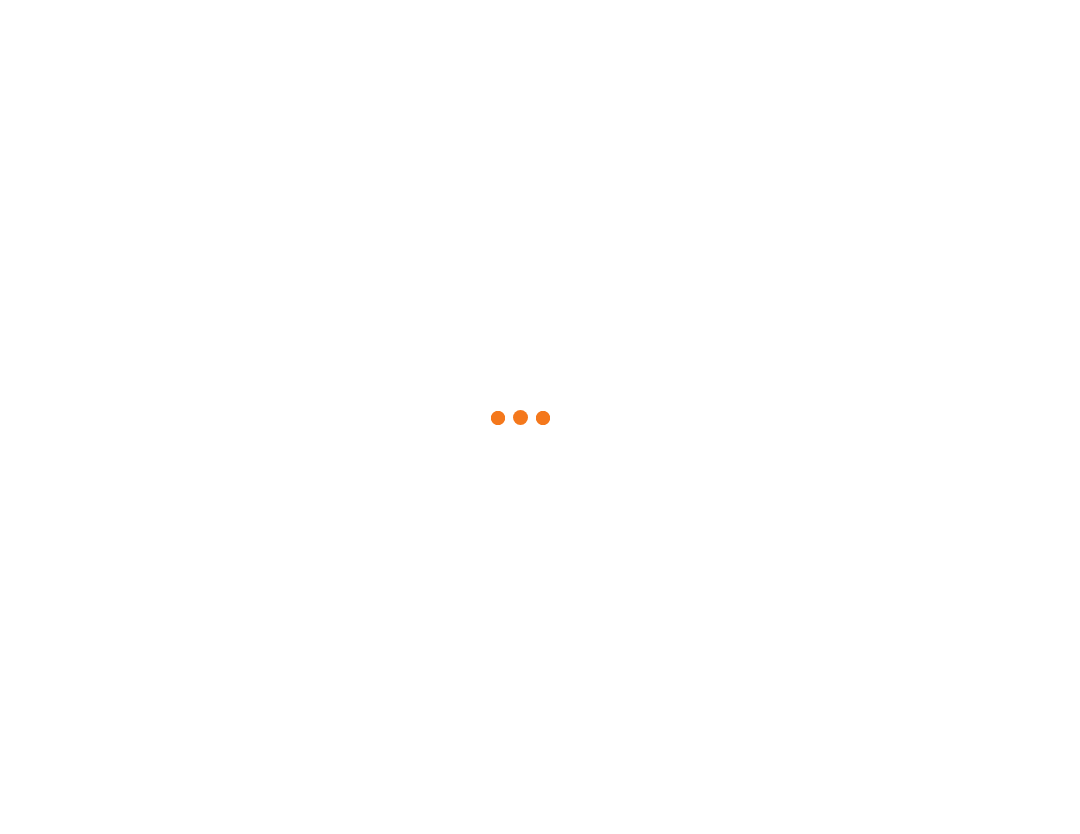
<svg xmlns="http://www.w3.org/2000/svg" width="1080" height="834">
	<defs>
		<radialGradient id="g1" gradientUnits="userSpaceOnUse" cx="543" cy="418" r="7.5"><stop offset="0.9" stop-color="#F4781C" /><stop offset="1" stop-color="#FFFFFF" /></radialGradient>
		<radialGradient id="g2" gradientUnits="userSpaceOnUse" cx="498" cy="418" r="7.5"><stop offset="0.9" stop-color="#F4781C" /><stop offset="1" stop-color="#FFFFFF" /></radialGradient>
	</defs>
	<rect width="100%" height="100%" fill="#FFFFFF" />
	<rect x="536" y="411" width="14" height="14" fill="url(#g1)" />
	<rect x="491" y="411" width="14" height="14" fill="url(#g2)" />
	<circle cx="520.5" cy="417.5" r="7.5" fill="#F4781C" />
</svg>
